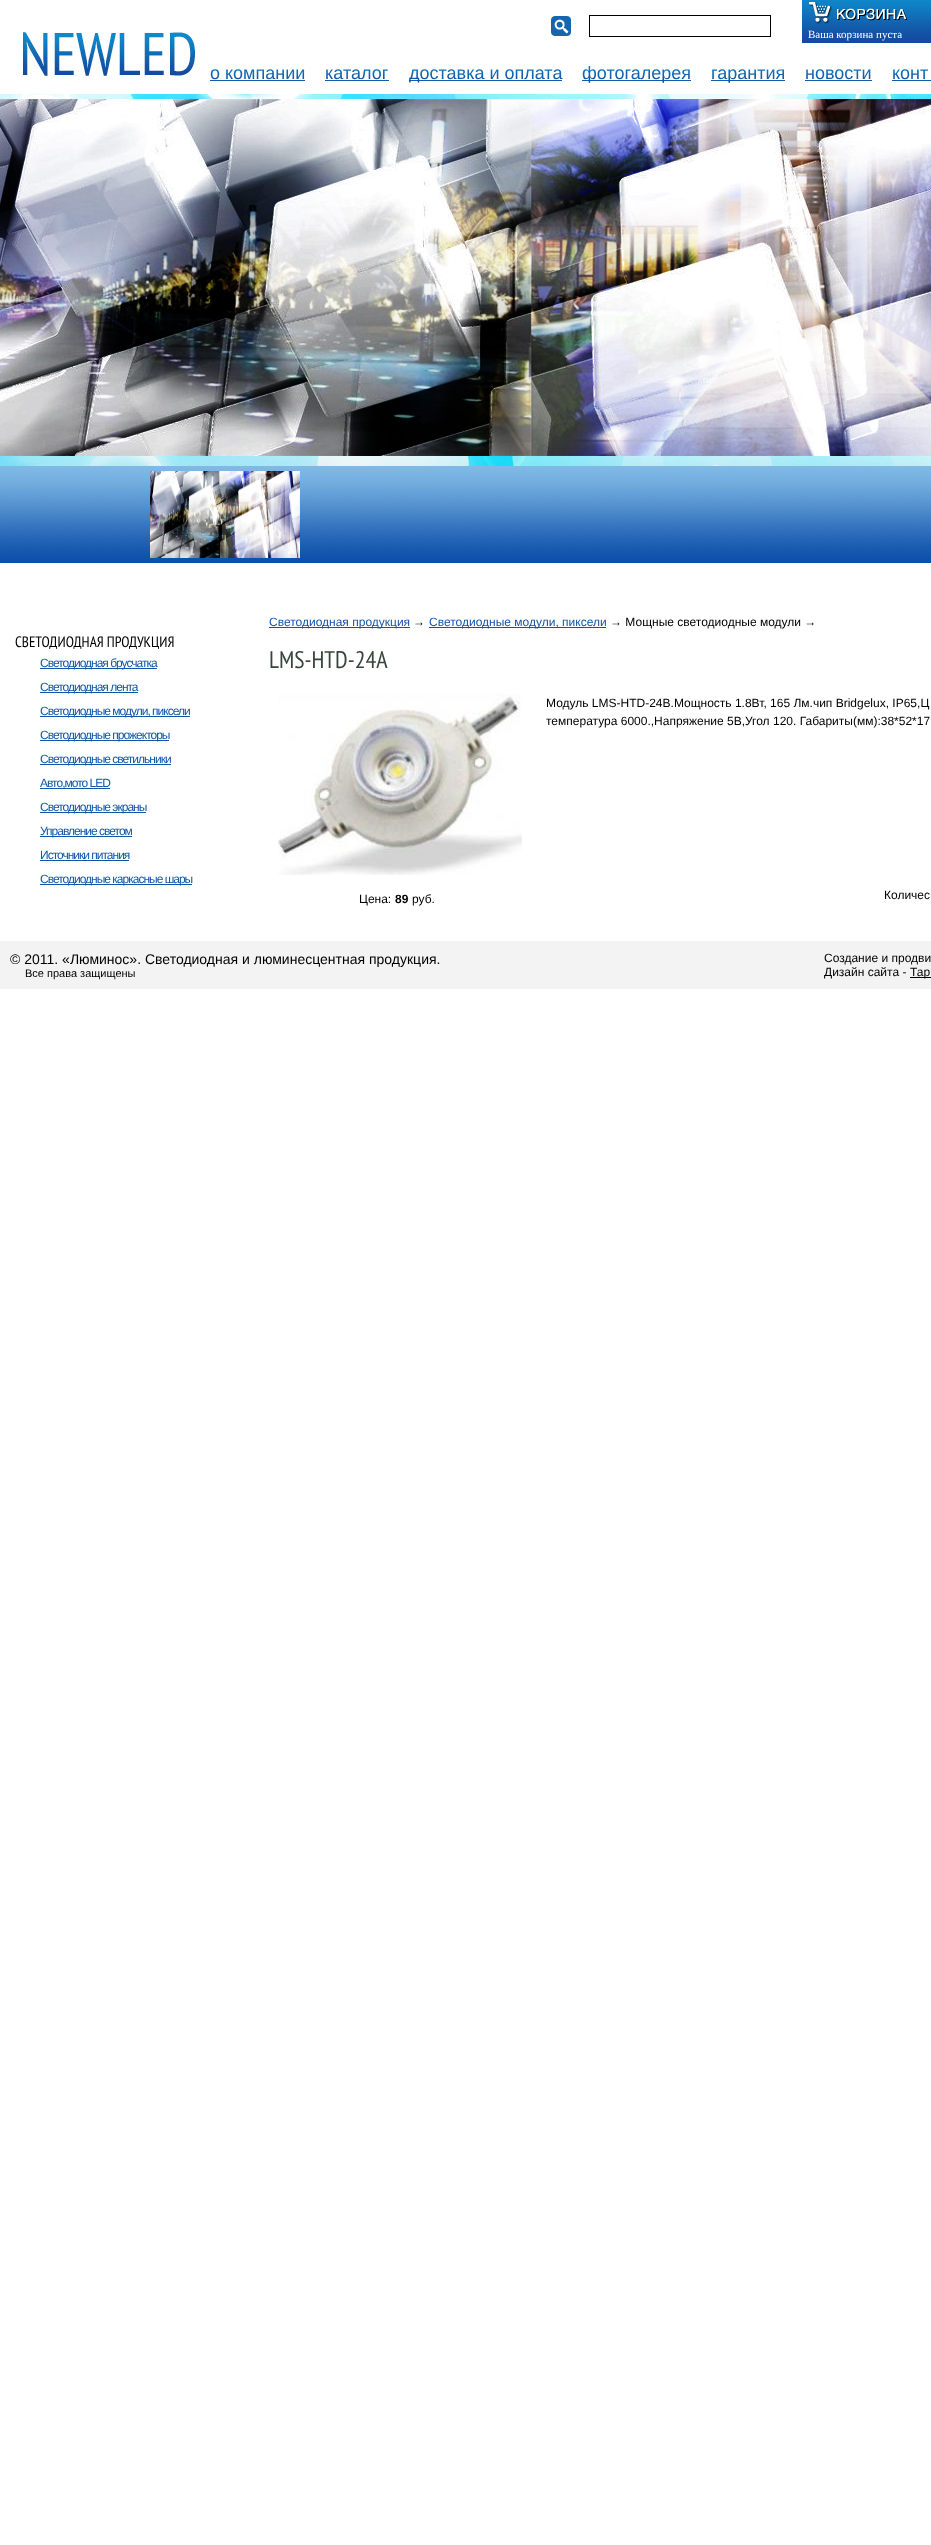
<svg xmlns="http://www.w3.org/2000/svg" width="931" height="2545">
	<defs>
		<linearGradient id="g1" gradientUnits="userSpaceOnUse" x1="210" y1="63" x2="210" y2="83"><stop offset="0" stop-color="#0F8ACB" /><stop offset="1" stop-color="#14489E" /></linearGradient>
		<linearGradient id="g2" gradientUnits="userSpaceOnUse" x1="325" y1="63" x2="325" y2="83"><stop offset="0" stop-color="#0F8ACB" /><stop offset="1" stop-color="#14489E" /></linearGradient>
		<linearGradient id="g3" gradientUnits="userSpaceOnUse" x1="409" y1="63" x2="409" y2="83"><stop offset="0" stop-color="#0F8ACB" /><stop offset="1" stop-color="#14489E" /></linearGradient>
		<linearGradient id="g4" gradientUnits="userSpaceOnUse" x1="582" y1="63" x2="582" y2="83"><stop offset="0" stop-color="#0F8ACB" /><stop offset="1" stop-color="#14489E" /></linearGradient>
		<linearGradient id="g5" gradientUnits="userSpaceOnUse" x1="711" y1="63" x2="711" y2="83"><stop offset="0" stop-color="#0F8ACB" /><stop offset="1" stop-color="#14489E" /></linearGradient>
		<linearGradient id="g6" gradientUnits="userSpaceOnUse" x1="805" y1="63" x2="805" y2="83"><stop offset="0" stop-color="#0F8ACB" /><stop offset="1" stop-color="#14489E" /></linearGradient>
		<linearGradient id="g7" gradientUnits="userSpaceOnUse" x1="892" y1="63" x2="892" y2="83"><stop offset="0" stop-color="#0F8ACB" /><stop offset="1" stop-color="#14489E" /></linearGradient>
	</defs>
	<rect width="100%" height="100%" fill="#FFFFFF" />
	<image x="17" y="0" width="914" height="80" href="assets/img1.png" />
	<image x="551" y="16" width="20" height="20" href="assets/img2.png" />
	<rect x="589.5" y="15.5" width="181" height="21" fill="none" stroke="#000000" />
	<text x="808" y="38" font-family="Liberation Serif" font-size="11" fill="#FFFFFF">Ваша корзина пуста</text>
	<text x="210" y="79" font-family="Liberation Sans" font-size="18" fill="url(#g1)">о компании</text>
	<rect x="210" y="80" width="95" height="1" fill="#135BAB" />
	<text x="325" y="79" font-family="Liberation Sans" font-size="18" fill="url(#g2)">каталог</text>
	<rect x="325" y="80" width="64" height="1" fill="#135BAB" />
	<rect x="409" y="80" width="153" height="1" fill="#135BAB" />
	<text x="409" y="79" font-family="Liberation Sans" font-size="18" fill="url(#g3)">доставка и оплата</text>
	<rect x="582" y="80" width="109" height="1" fill="#135BAB" />
	<text x="582" y="79" font-family="Liberation Sans" font-size="18" fill="url(#g4)">фотогалерея</text>
	<rect x="711" y="80" width="74" height="1" fill="#135BAB" />
	<text x="711" y="79" font-family="Liberation Sans" font-size="18" fill="url(#g5)">гарантия</text>
	<text x="805" y="79" font-family="Liberation Sans" font-size="18" fill="url(#g6)">новости</text>
	<rect x="805" y="80" width="67" height="1" fill="#135BAB" />
	<text x="892" y="79" font-family="Liberation Sans" font-size="18" fill="url(#g7)">конт</text>
	<rect x="892" y="80" width="39" height="1" fill="#135BAB" />
	<image x="0" y="94" width="931" height="372" href="assets/img3.png" />
	<image x="0" y="99" width="931" height="357" href="assets/img4.png" />
	<image x="0" y="466" width="931" height="97" href="assets/img5.png" />
	<image x="150" y="471" width="150" height="87" href="assets/img6.png" />
	<text x="15" y="647" font-family="PT Sans Narrow" font-size="15" fill="#000000">СВЕТОДИОДНАЯ ПРОДУКЦИЯ</text>
	<rect x="40" y="668" width="117" height="1" fill="#1356A8" />
	<text x="40" y="667" font-family="Liberation Sans" font-size="12" letter-spacing="-1" fill="#1356A8">Светодиодная брусчатка</text>
	<rect x="40" y="692" width="98" height="1" fill="#1356A8" />
	<text x="40" y="691" font-family="Liberation Sans" font-size="12" letter-spacing="-1" fill="#1356A8">Светодиодная лента</text>
	<rect x="40" y="716" width="150" height="1" fill="#1356A8" />
	<text x="40" y="715" font-family="Liberation Sans" font-size="12" letter-spacing="-1" fill="#1356A8">Светодиодные модули, пиксели</text>
	<rect x="40" y="740" width="129" height="1" fill="#1356A8" />
	<text x="40" y="739" font-family="Liberation Sans" font-size="12" letter-spacing="-1" fill="#1356A8">Светодиодные прожекторы</text>
	<rect x="40" y="764" width="131" height="1" fill="#1356A8" />
	<text x="40" y="763" font-family="Liberation Sans" font-size="12" letter-spacing="-1" fill="#1356A8">Светодиодные светильники</text>
	<rect x="40" y="788" width="70" height="1" fill="#1356A8" />
	<text x="40" y="787" font-family="Liberation Sans" font-size="12" letter-spacing="-1" fill="#1356A8">Авто,мото LED</text>
	<rect x="40" y="812" width="106" height="1" fill="#1356A8" />
	<text x="40" y="811" font-family="Liberation Sans" font-size="12" letter-spacing="-1" fill="#1356A8">Светодиодные экраны</text>
	<rect x="40" y="836" width="92" height="1" fill="#1356A8" />
	<g font-family="Liberation Sans" font-size="12" letter-spacing="-1" fill="#1356A8">
		<text x="40" y="835">Управление светом</text>
		<text x="40" y="859">Источники питания</text>
	</g>
	<rect x="40" y="860" width="89" height="1" fill="#1356A8" />
	<rect x="40" y="884" width="152" height="1" fill="#1356A8" />
	<text x="40" y="883" font-family="Liberation Sans" font-size="12" letter-spacing="-1" fill="#1356A8">Светодиодные каркасные шары</text>
	<rect x="269" y="627" width="141" height="1" fill="#1356A8" />
	<text x="269" y="626" font-family="Liberation Sans" font-size="12" fill="#1356A8">Светодиодная продукция</text>
	<text x="413" y="626" font-family="Liberation Sans" font-size="12" fill="#000000">→</text>
	<rect x="429" y="627" width="177" height="1" fill="#1356A8" />
	<text x="429" y="626" font-family="Liberation Sans" font-size="12" fill="#1356A8">Светодиодные модули, пиксели</text>
	<text x="610" y="626" font-family="Liberation Sans" font-size="12" fill="#000000">→ Мощные светодиодные модули →</text>
	<text x="269" y="668" font-family="PT Sans Narrow" font-size="24" fill="#37453A">LMS-HTD-24A</text>
	<image x="278" y="694" width="244" height="181" href="assets/img7.png" />
	<g font-family="Liberation Sans" font-size="12" fill="#000000">
		<text x="546" y="707">Модуль LMS-HTD-24B.Мощность 1.8Вт, 165 Лм.чип Bridgelux, IP65,Ц</text>
		<text x="546" y="725">температура 6000.,Напряжение 5В,Угол 120. Габариты(мм):38*52*17</text>
		<text x="359" y="903">Цена:</text>
	</g>
	<text x="395" y="903" font-family="Liberation Sans" font-size="12" font-weight="700" fill="#000000">89</text>
	<g font-family="Liberation Sans" font-size="12" fill="#000000">
		<text x="412" y="903">руб.</text>
		<text x="884" y="899">Количес</text>
	</g>
	<rect x="0" y="941" width="931" height="48" fill="#F3F3F4" />
	<text x="10" y="964" font-family="Liberation Sans" font-size="14" fill="#000000">© 2011. «Люминос». Светодиодная и люминесцентная продукция.</text>
	<text x="25" y="977" font-family="Liberation Sans" font-size="11" fill="#000000">Все права защищены</text>
	<g font-family="Liberation Sans" font-size="12" fill="#000000">
		<text x="824" y="962">Создание и продви</text>
		<text x="824" y="976">Дизайн сайта -</text>
	</g>
	<rect x="910" y="977" width="21" height="1" fill="#000000" />
	<text x="910" y="976" font-family="Liberation Sans" font-size="12" fill="#000000">Тар</text>
</svg>
